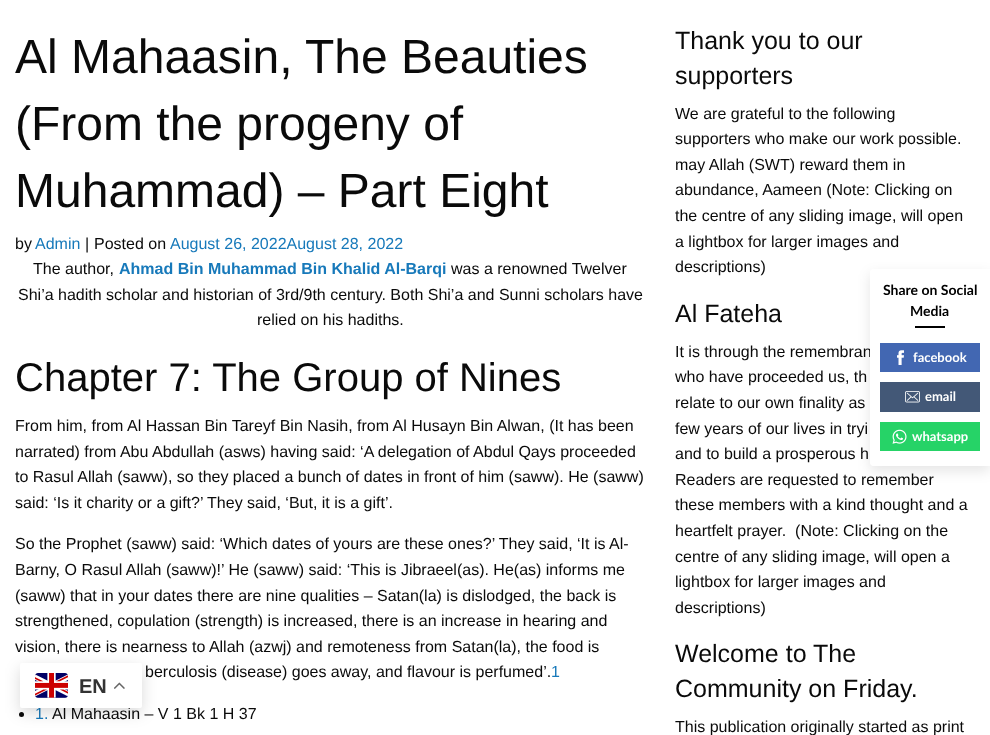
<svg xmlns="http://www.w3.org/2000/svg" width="990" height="735">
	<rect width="100%" height="100%" fill="#FFFFFF" />
	<g font-family="Liberation Sans" font-size="48" fill="#0A0A0A">
		<text x="15" y="73">Al Mahaasin, The Beauties</text>
		<text x="15" y="140">(From the progeny of</text>
		<text x="15" y="207">Muhammad) – Part Eight</text>
	</g>
	<text x="15" y="249" font-family="Liberation Sans" font-size="16" fill="#0A0A0A">by</text>
	<text x="35" y="249" font-family="Liberation Sans" font-size="16" fill="#1779BA">Admin</text>
	<g font-family="Liberation Sans" font-size="16" fill="#0A0A0A">
		<text x="85" y="249">|</text>
		<text x="94" y="249">Posted on</text>
	</g>
	<text x="170" y="249" font-family="Liberation Sans" font-size="16" fill="#1779BA">August 26, 2022August 28, 2022</text>
	<text x="33" y="274" font-family="Liberation Sans" font-size="16" fill="#0A0A0A">The author,</text>
	<text x="119" y="274" font-family="Liberation Sans" font-size="16" font-weight="700" fill="#1779BA">Ahmad Bin Muhammad Bin Khalid Al-Barqi</text>
	<g font-family="Liberation Sans" font-size="16" fill="#0A0A0A">
		<text x="451" y="274">was a renowned Twelver</text>
		<text x="18" y="300">Shi’a hadith scholar and historian of 3rd/9th century. Both Shi’a and Sunni scholars have</text>
		<text x="257" y="325">relied on his hadiths.</text>
	</g>
	<text x="15" y="391" font-family="Liberation Sans" font-size="40" fill="#0A0A0A">Chapter 7: The Group of Nines</text>
	<g font-family="Liberation Sans" font-size="16" fill="#0A0A0A">
		<text x="15" y="431">From him, from Al Hassan Bin Tareyf Bin Nasih, from Al Husayn Bin Alwan, (It has been</text>
		<text x="15" y="457">narrated) from Abu Abdullah (asws) having said: ‘A delegation of Abdul Qays proceeded</text>
		<text x="15" y="482">to Rasul Allah (saww), so they placed a bunch of dates in front of him (saww). He (saww)</text>
		<text x="15" y="508">said: ‘Is it charity or a gift?’ They said, ‘But, it is a gift’.</text>
		<text x="15" y="549">So the Prophet (saww) said: ‘Which dates of yours are these ones?’ They said, ‘It is Al-</text>
		<text x="15" y="575">Barny, O Rasul Allah (saww)!’ He (saww) said: ‘This is Jibraeel(as). He(as) informs me</text>
		<text x="15" y="601">(saww) that in your dates there are nine qualities – Satan(la) is dislodged, the back is</text>
		<text x="15" y="626">strengthened, copulation (strength) is increased, there is an increase in hearing and</text>
		<text x="15" y="652">vision, there is nearness to Allah (azwj) and remoteness from Satan(la), the food is</text>
		<text x="145" y="677">berculosis (disease) goes away, and flavour is perfumed’.</text>
	</g>
	<text x="551" y="677" font-family="Liberation Sans" font-size="16" fill="#1779BA">1</text>
	<circle cx="21.5" cy="714.5" r="2.5" fill="#0A0A0A" />
	<text x="35" y="719" font-family="Liberation Sans" font-size="16" fill="#1779BA">1.</text>
	<text x="52" y="719" font-family="Liberation Sans" font-size="16" fill="#0A0A0A">Al Mahaasin – V 1 Bk 1 H 37</text>
	<g font-family="Liberation Sans" font-size="25" fill="#0A0A0A">
		<text x="675" y="49">Thank you to our</text>
		<text x="675" y="84">supporters</text>
	</g>
	<g font-family="Liberation Sans" font-size="16" fill="#0A0A0A">
		<text x="675" y="119">We are grateful to the following</text>
		<text x="675" y="144">supporters who make our work possible.</text>
		<text x="675" y="170">may Allah (SWT) reward them in</text>
		<text x="675" y="195">abundance, Aameen (Note: Clicking on</text>
		<text x="675" y="221">the centre of any sliding image, will open</text>
		<text x="675" y="247">a lightbox for larger images and</text>
		<text x="675" y="272">descriptions)</text>
	</g>
	<text x="675" y="322" font-family="Liberation Sans" font-size="25" fill="#0A0A0A">Al Fateha</text>
	<g font-family="Liberation Sans" font-size="16" fill="#0A0A0A">
		<text x="675" y="357">It is through the remembran</text>
		<text x="675" y="382">who have proceeded us, th</text>
		<text x="675" y="408">relate to our own finality as</text>
		<text x="675" y="434">few years of our lives in tryi</text>
		<text x="675" y="459">and to build a prosperous h</text>
		<text x="675" y="485">Readers are requested to remember</text>
		<text x="675" y="510">these members with a kind thought and a</text>
		<text x="675" y="536" xml:space="preserve">heartfelt prayer.  (Note: Clicking on the</text>
		<text x="675" y="562">centre of any sliding image, will open a</text>
		<text x="675" y="587">lightbox for larger images and</text>
		<text x="675" y="613">descriptions)</text>
	</g>
	<g font-family="Liberation Sans" font-size="25" fill="#0A0A0A">
		<text x="675" y="662">Welcome to The</text>
		<text x="675" y="697">Community on Friday.</text>
	</g>
	<text x="675" y="732" font-family="Liberation Sans" font-size="16" fill="#0A0A0A">This publication originally started as print</text>
	<rect x="870" y="274" width="120" height="197" rx="3" fill="#000000" fill-opacity="0.1" filter="blur(6.5px)" />
	<path d="M873 269H990V466H873C871.5 466 870 464.5 870 463V272C870 270.5 871.5 269 873 269Z" fill="#FFFFFF" />
	<g font-family="Lato" font-size="14" font-weight="700" fill="#000000">
		<text x="883" y="295">Share on Social</text>
		<text x="910" y="316">Media</text>
	</g>
	<rect x="915" y="326" width="30" height="2" fill="#000000" />
	<rect x="880" y="343" width="100" height="29" fill="#4267B2" />
	<image x="897" y="350" width="7" height="15" href="assets/img1.png" />
	<text x="913" y="362" font-family="Lato" font-size="13" font-weight="700" fill="#FFFFFF">facebook</text>
	<rect x="880" y="382" width="100" height="30" fill="#435877" />
	<image x="905" y="391" width="15" height="12" href="assets/img2.png" />
	<text x="925" y="401" font-family="Lato" font-size="13" font-weight="700" fill="#FFFFFF">email</text>
	<rect x="880" y="422" width="100" height="29" fill="#26D367" />
	<image x="892" y="429" width="15" height="15" href="assets/img3.png" />
	<text x="912" y="441" font-family="Lato" font-size="13" font-weight="700" fill="#FFFFFF">whatsapp</text>
	<rect x="20" y="668" width="122" height="45" rx="2" fill="#000000" fill-opacity="0.15" filter="blur(7.5px)" />
	<rect x="20" y="663" width="122" height="45" rx="2" fill="#FFFFFF" />
	<image x="35" y="673" width="33" height="25" href="assets/img4.png" />
	<text x="79" y="693" font-family="Liberation Sans" font-size="20" font-weight="700" fill="#333333">EN</text>
	<image x="114" y="682" width="11" height="7" href="assets/img5.png" />
</svg>
